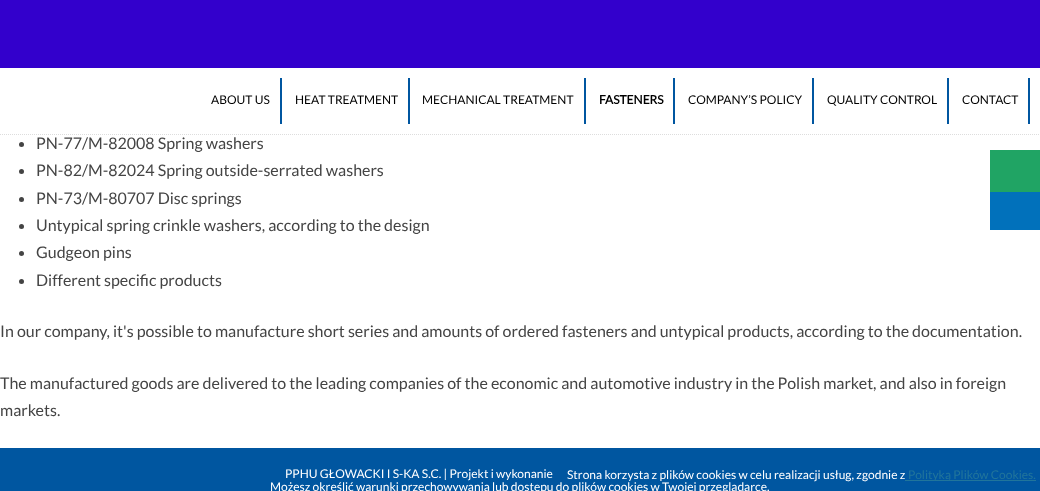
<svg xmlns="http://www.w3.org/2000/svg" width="1040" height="491">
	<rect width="100%" height="100%" fill="#FFFFFF" />
	<path d="M0 134.5H1040" fill="none" stroke="#DDDDDD" stroke-dasharray="1 1" />
	<rect x="0" y="0" width="1040" height="68" fill="#3300CC" />
	<rect x="280" y="78" width="2" height="46" fill="#0056A0" />
	<text x="211" y="104" font-family="Lato" font-size="12" fill="#000000">ABOUT US</text>
	<rect x="408" y="78" width="2" height="46" fill="#0056A0" />
	<text x="295" y="104" font-family="Lato" font-size="12" fill="#000000">HEAT TREATMENT</text>
	<rect x="584" y="78" width="2" height="46" fill="#0056A0" />
	<text x="422" y="104" font-family="Lato" font-size="12" fill="#000000">MECHANICAL TREATMENT</text>
	<rect x="673" y="78" width="2" height="46" fill="#0056A0" />
	<text x="599" y="104" font-family="Lato" font-size="12" font-weight="700" fill="#000000">FASTENERS</text>
	<rect x="812" y="78" width="2" height="46" fill="#0056A0" />
	<text x="688" y="104" font-family="Lato" font-size="12" fill="#000000">COMPANY’S POLICY</text>
	<rect x="947" y="78" width="2" height="46" fill="#0056A0" />
	<text x="827" y="104" font-family="Lato" font-size="12" fill="#000000">QUALITY CONTROL</text>
	<rect x="1028" y="78" width="2" height="46" fill="#0056A0" />
	<text x="962" y="104" font-family="Lato" font-size="12" fill="#000000">CONTACT</text>
	<circle cx="21.5" cy="144.5" r="2.5" fill="#444444" />
	<text x="36" y="149" font-family="Lato" font-size="16" fill="#444444">PN-77/M-82008 Spring washers</text>
	<circle cx="21.5" cy="171.5" r="2.5" fill="#444444" />
	<text x="36" y="176" font-family="Lato" font-size="16" fill="#444444">PN-82/M-82024 Spring outside-serrated washers</text>
	<circle cx="21.5" cy="199.5" r="2.5" fill="#444444" />
	<text x="36" y="204" font-family="Lato" font-size="16" fill="#444444">PN-73/M-80707 Disc springs</text>
	<circle cx="21.5" cy="226.5" r="2.5" fill="#444444" />
	<text x="36" y="231" font-family="Lato" font-size="16" fill="#444444">Untypical spring crinkle washers, according to the design</text>
	<circle cx="21.5" cy="253.5" r="2.5" fill="#444444" />
	<text x="36" y="258" font-family="Lato" font-size="16" fill="#444444">Gudgeon pins</text>
	<circle cx="21.5" cy="281.5" r="2.5" fill="#444444" />
	<g font-family="Lato" font-size="16" fill="#444444">
		<text x="36" y="286">Different specific products</text>
		<text x="0" y="337">In our company, it's possible to manufacture short series and amounts of ordered fasteners and untypical products, according to the documentation.</text>
		<text x="0" y="389">The manufactured goods are delivered to the leading companies of the economic and automotive industry in the Polish market, and also in foreign</text>
		<text x="0" y="416">markets.</text>
	</g>
	<rect x="0" y="448" width="1040" height="43" fill="#0056A0" />
	<g font-family="Lato" font-size="12" fill="#FFFFFF">
		<text x="285" y="478">PPHU GŁOWACKI I S-KA S.C. | Projekt i wykonanie</text>
		<text x="567" y="479">Strona korzysta z plików cookies w celu realizacji usług, zgodnie z</text>
	</g>
	<rect x="905" y="480" width="131" height="1" fill="#21759B" />
	<text x="908" y="479" font-family="Lato" font-size="12" fill="#21759B">Polityką Plików Cookies.</text>
	<text x="270" y="491" font-family="Lato" font-size="12" fill="#FFFFFF">Możesz określić warunki przechowywania lub dostępu do plików cookies w Twojej przeglądarce.</text>
	<rect x="990" y="150" width="50" height="42" fill="#20A464" />
	<rect x="990" y="192" width="50" height="38" fill="#0171BB" />
</svg>
